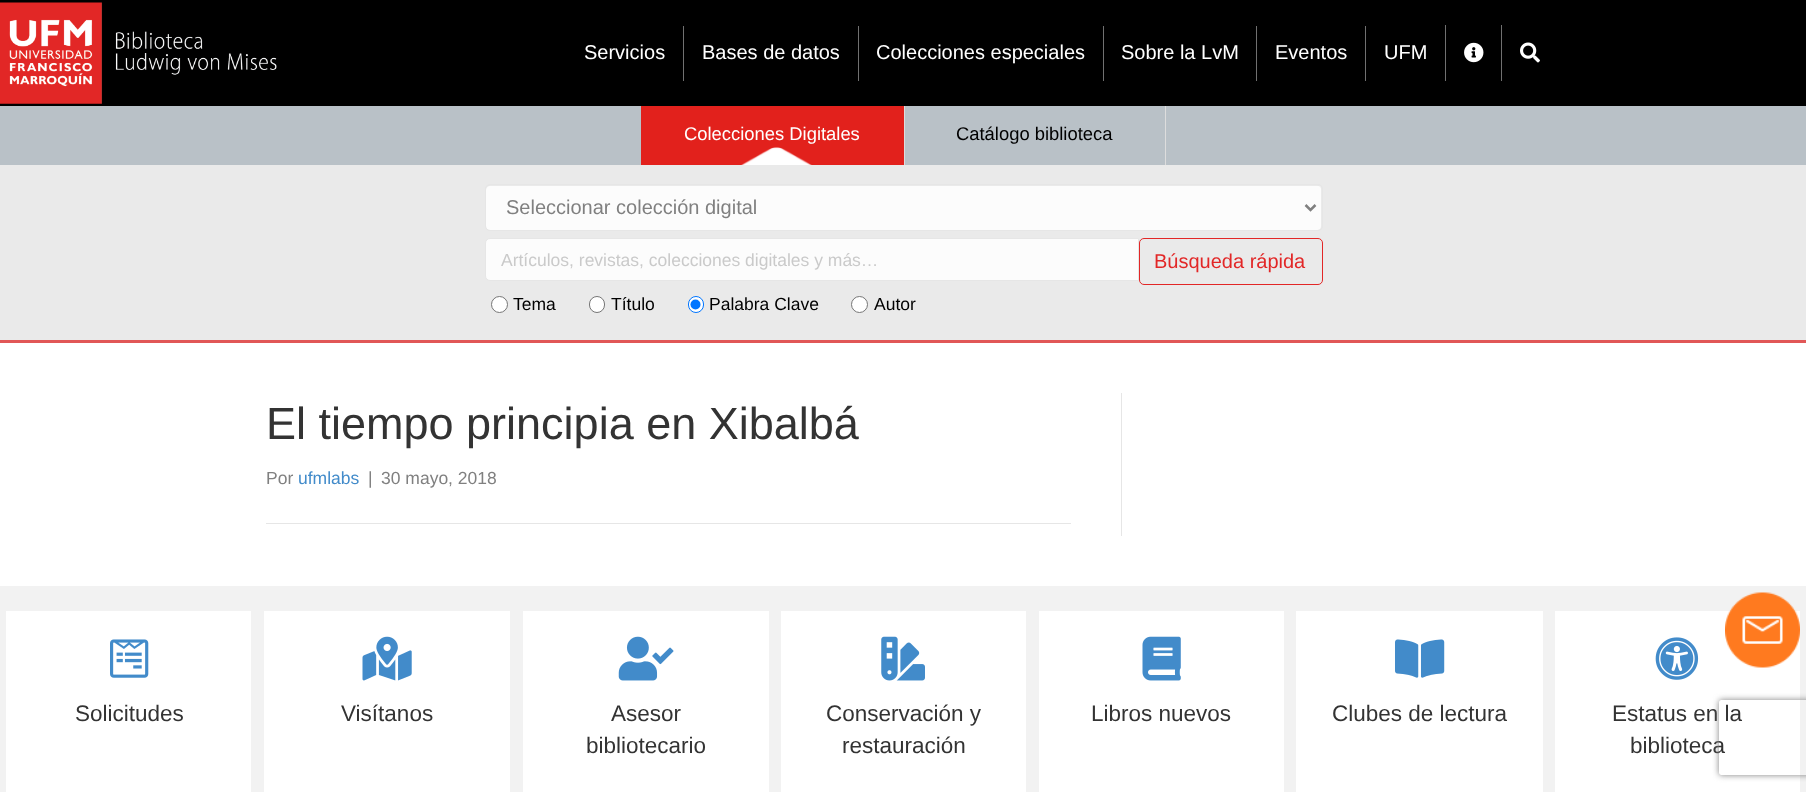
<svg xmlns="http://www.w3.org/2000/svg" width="1806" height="792">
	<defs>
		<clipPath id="clip1"><path d="M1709 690H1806V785H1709ZM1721.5 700H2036.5C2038 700 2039 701 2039 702.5V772.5C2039 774 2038 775 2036.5 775H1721.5C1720 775 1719 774 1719 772.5V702.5C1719 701 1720 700 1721.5 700Z" clip-rule="evenodd" /></clipPath>
	</defs>
	<rect width="100%" height="100%" fill="#F2F2F2" />
	<rect x="0" y="0" width="1806" height="106" fill="#000000" />
	<image x="0" y="2" width="277" height="102" href="assets/img1.png" />
	<text x="584" y="59" font-family="Liberation Sans" font-size="20" fill="#FFFFFF">Servicios</text>
	<rect x="683" y="26" width="1" height="55" fill="#707070" />
	<text x="702" y="59" font-family="Liberation Sans" font-size="20" fill="#FFFFFF">Bases de datos</text>
	<rect x="858" y="26" width="1" height="55" fill="#707070" />
	<text x="876" y="59" font-family="Liberation Sans" font-size="20" fill="#FFFFFF">Colecciones especiales</text>
	<rect x="1103" y="26" width="1" height="55" fill="#707070" />
	<text x="1121" y="59" font-family="Liberation Sans" font-size="20" fill="#FFFFFF">Sobre la LvM</text>
	<rect x="1256" y="26" width="1" height="55" fill="#707070" />
	<text x="1275" y="59" font-family="Liberation Sans" font-size="20" fill="#FFFFFF">Eventos</text>
	<rect x="1365" y="26" width="1" height="55" fill="#707070" />
	<text x="1384" y="59" font-family="Liberation Sans" font-size="20" fill="#FFFFFF">UFM</text>
	<rect x="1445" y="25" width="1" height="56" fill="#707070" />
	<image x="1464" y="42" width="20" height="21" href="assets/img2.png" />
	<rect x="1501" y="25" width="1" height="56" fill="#707070" />
	<image x="1520" y="42" width="20" height="21" href="assets/img3.png" />
	<rect x="0" y="106" width="1806" height="59" fill="#B9C1C7" />
	<rect x="641" y="106" width="263" height="59" fill="#E2211C" />
	<text x="684" y="140" font-family="Liberation Sans" font-size="18.4" fill="#FFFFFF">Colecciones Digitales</text>
	<rect x="1165" y="106" width="1" height="59" fill="#DDDDDD" />
	<rect x="904" y="106" width="1" height="59" fill="#DDDDDD" />
	<text x="956" y="140" font-family="Liberation Sans" font-size="18.4" fill="#000000">Catálogo biblioteca</text>
	<image x="741" y="147" width="71" height="18" href="assets/img4.png" />
	<rect x="0" y="165" width="1806" height="175" fill="#EAEAEA" />
	<rect x="0" y="340" width="1806" height="3" fill="#E15757" />
	<rect x="486" y="185" width="835" height="45" rx="4" fill="#FCFCFC" />
	<path d="M490 186H1318C1320 186 1321 188 1321 190C1321 187 1320 185 1317 185H490C487 185 486 187 486 190C486 188 488 186 490 186Z" fill="#000000" fill-opacity="0.07" />
	<rect x="485.5" y="184.5" width="837" height="46" rx="4.5" fill="none" stroke="#E6E6E6" />
	<path d="M1305.5 205L1310.5 210L1315.5 205" fill="none" stroke="#808080" stroke-width="2.5" />
	<text x="506" y="214" font-family="Liberation Sans" font-size="20" fill="#808080">Seleccionar colección digital</text>
	<path d="M490 238.5H1138.5V280.5H490C487.5 280.5 485.5 278.5 485.5 276V243C485.5 240.5 487.5 238.5 490 238.5Z" fill="#FCFCFC" stroke="#E6E6E6" />
	<text x="501" y="266" font-family="Liberation Sans" font-size="17.5" fill="#CACACA">Artículos, revistas, colecciones digitales y más…</text>
	<rect x="1139.5" y="238.5" width="183" height="46" rx="4.5" fill="none" stroke="#E22727" />
	<text x="1154" y="268" font-family="Liberation Sans" font-size="20" fill="#E22727">Búsqueda rápida</text>
	<circle cx="499.5" cy="304.5" r="8" fill="#FFFFFF" stroke="#767676" />
	<text x="513" y="310" font-family="Liberation Sans" font-size="17.5" fill="#000000">Tema</text>
	<rect x="589.5" y="296.5" width="15" height="16" rx="7.5" fill="#FFFFFF" stroke="#767676" />
	<text x="611" y="310" font-family="Liberation Sans" font-size="17.5" fill="#000000">Título</text>
	<rect x="688.5" y="296.5" width="15" height="16" rx="7.5" fill="#FFFFFF" stroke="#0075FF" />
	<circle cx="695.5" cy="304.5" r="5" fill="#0075FF" />
	<text x="709" y="310" font-family="Liberation Sans" font-size="17.5" fill="#000000">Palabra Clave</text>
	<circle cx="859.5" cy="304.5" r="8" fill="#FFFFFF" stroke="#767676" />
	<text x="874" y="310" font-family="Liberation Sans" font-size="17.5" fill="#000000">Autor</text>
	<rect x="0" y="343" width="1806" height="243" fill="#FFFFFF" />
	<rect x="1121" y="393" width="1" height="143" fill="#E6E6E6" />
	<text x="266" y="439" font-family="Liberation Sans" font-size="45" fill="#333333">El tiempo principia en Xibalbá</text>
	<text x="266" y="484" font-family="Liberation Sans" font-size="17.5" fill="#808080">Por</text>
	<text x="298" y="484" font-family="Liberation Sans" font-size="17.5" fill="#428BCA">ufmlabs</text>
	<g font-family="Liberation Sans" font-size="17.5" fill="#808080">
		<text x="368" y="484">|</text>
		<text x="381" y="484">30 mayo, 2018</text>
	</g>
	<rect x="266" y="523" width="805" height="1" fill="#E6E6E6" />
	<rect x="1555" y="611" width="245" height="181" fill="#FFFFFF" />
	<image x="1725" y="592" width="75" height="76" href="assets/img5.png" />
	<rect x="6" y="611" width="245" height="181" fill="#FFFFFF" />
	<image x="110" y="639" width="39" height="39" href="assets/img6.png" />
	<text x="75" y="721" font-family="Liberation Sans" font-size="22.5" fill="#333333">Solicitudes</text>
	<rect x="264" y="611" width="246" height="181" fill="#FFFFFF" />
	<image x="362" y="636" width="50" height="45" href="assets/img7.png" />
	<text x="341" y="721" font-family="Liberation Sans" font-size="22.5" fill="#333333">Visítanos</text>
	<rect x="523" y="611" width="246" height="181" fill="#FFFFFF" />
	<image x="618" y="636" width="56" height="45" href="assets/img8.png" />
	<g font-family="Liberation Sans" font-size="22.5" fill="#333333">
		<text x="611" y="721">Asesor</text>
		<text x="586" y="753">bibliotecario</text>
	</g>
	<rect x="781" y="611" width="245" height="181" fill="#FFFFFF" />
	<image x="881" y="636" width="44" height="45" href="assets/img9.png" />
	<g font-family="Liberation Sans" font-size="22.5" fill="#333333">
		<text x="826" y="721">Conservación y</text>
		<text x="842" y="753">restauración</text>
	</g>
	<rect x="1039" y="611" width="245" height="181" fill="#FFFFFF" />
	<image x="1142" y="636" width="39" height="45" href="assets/img10.png" />
	<text x="1091" y="721" font-family="Liberation Sans" font-size="22.5" fill="#333333">Libros nuevos</text>
	<rect x="1296" y="611" width="247" height="181" fill="#FFFFFF" />
	<image x="1395" y="639" width="50" height="39" href="assets/img11.png" />
	<text x="1332" y="721" font-family="Liberation Sans" font-size="22.5" fill="#333333">Clubes de lectura</text>
	<image x="1655" y="637" width="44" height="43" href="assets/img12.png" />
	<g font-family="Liberation Sans" font-size="22.5" fill="#333333">
		<text x="1612" y="721">Estatus en la</text>
		<text x="1630" y="753">biblioteca</text>
	</g>
	<g clip-path="url(#clip1)">
		<rect x="1719" y="700" width="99" height="75" rx="2.5" fill="#808080" filter="blur(3px)" />
	</g>
</svg>
